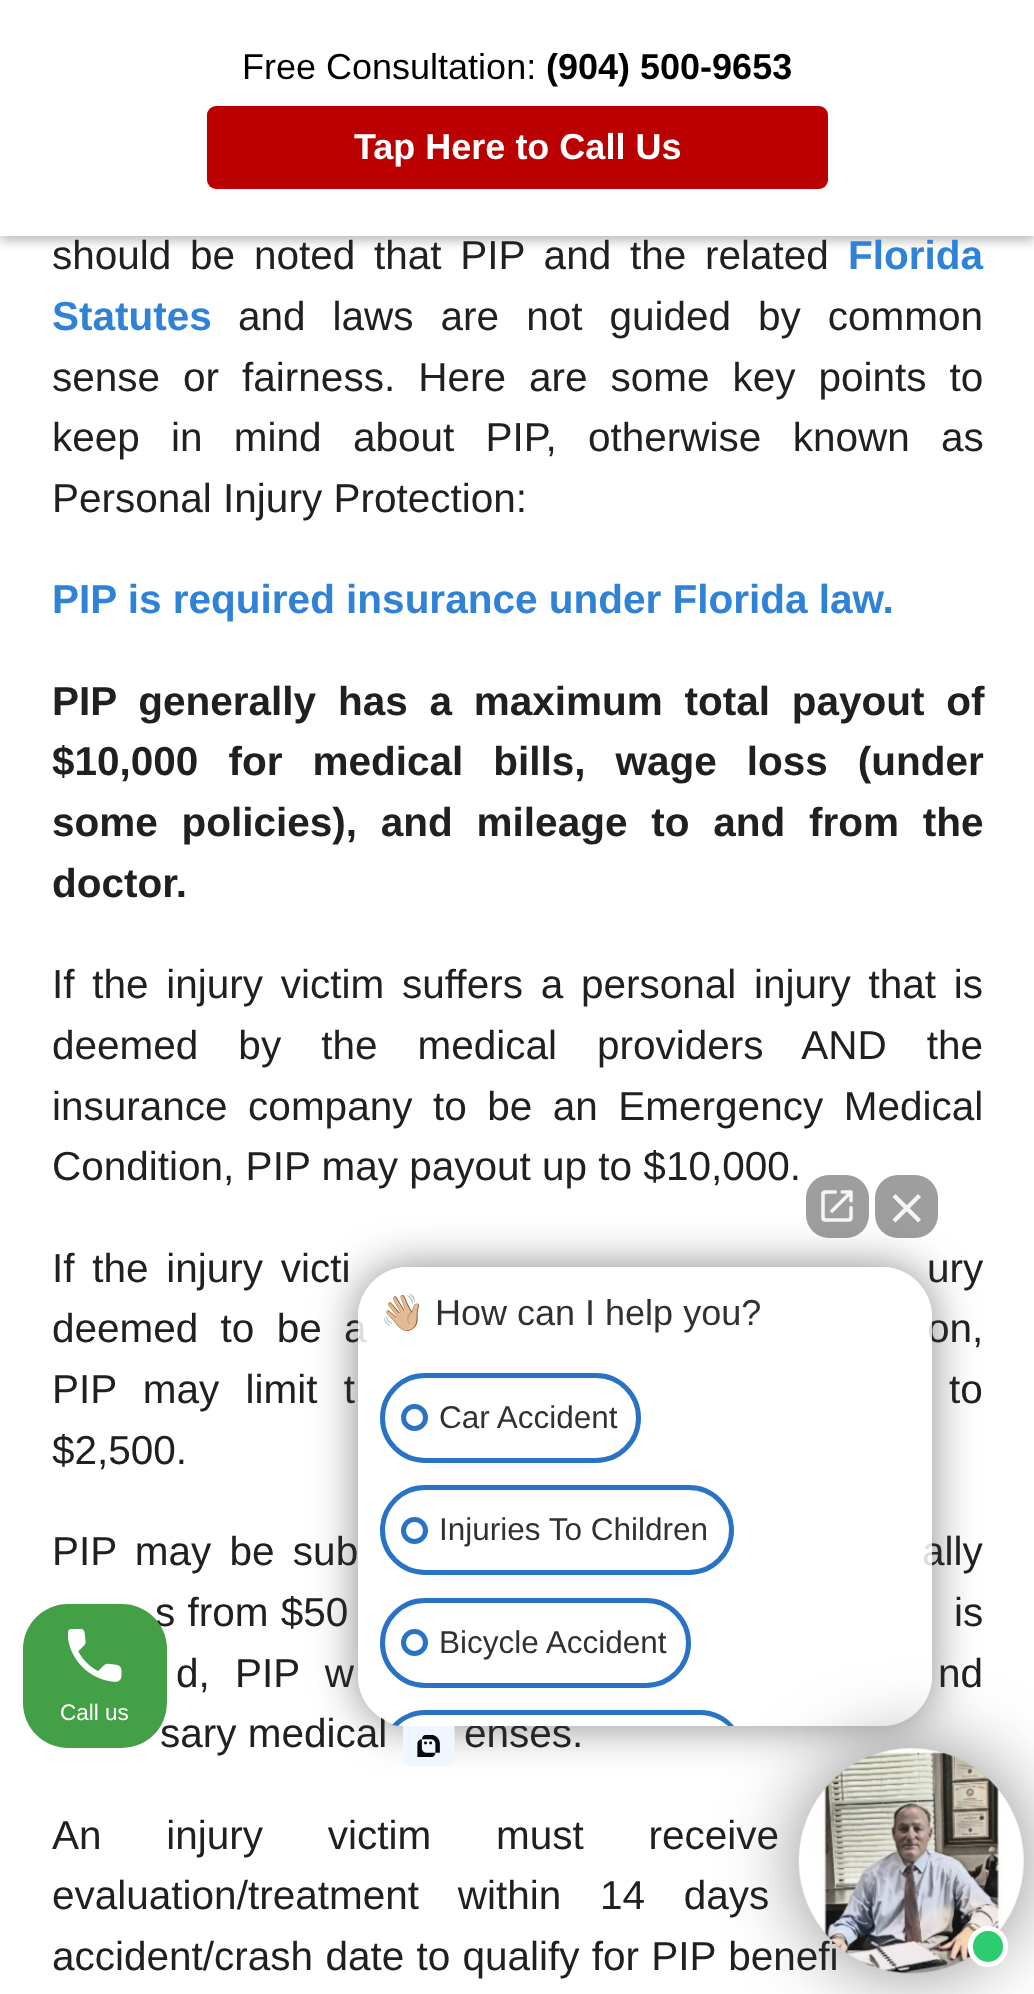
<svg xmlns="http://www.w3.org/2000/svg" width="1034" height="1994">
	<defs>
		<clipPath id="clip1"><path d="M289 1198H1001V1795H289ZM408 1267H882C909.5 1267 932 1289.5 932 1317V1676C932 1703.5 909.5 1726 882 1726H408C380.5 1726 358 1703.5 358 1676V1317C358 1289.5 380.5 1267 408 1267Z" clip-rule="evenodd" /></clipPath>
		<clipPath id="clip2"><rect x="358" y="1267" width="574" height="459" rx="45" /></clipPath>
	</defs>
	<rect width="100%" height="100%" fill="#FFFFFF" />
	<rect x="0" y="5" width="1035" height="236" fill="#000000" fill-opacity="0.26" filter="blur(5.5px)" />
	<rect x="0" y="0" width="1034" height="236" fill="#FFFFFF" />
	<text x="242" y="79" font-family="Liberation Sans" font-size="36" fill="#000000">Free Consultation:</text>
	<text x="546" y="79" font-family="Liberation Sans" font-size="36" font-weight="700" fill="#000000">(904) 500-9653</text>
	<rect x="207" y="106" width="621" height="83" rx="9" fill="#BA0000" />
	<text x="354" y="159" font-family="Liberation Sans" font-size="36" font-weight="700" fill="#FFFFFF">Tap Here to Call Us</text>
	<text x="52" y="269" word-spacing="7.5" font-family="Liberation Sans" font-size="40.5" fill="#202020">should be noted that PIP and the related</text>
	<g font-family="Liberation Sans" font-size="40.5" font-weight="700" fill="#3082D6">
		<text x="848" y="269">Florida</text>
		<text x="52" y="330">Statutes</text>
	</g>
	<g font-family="Liberation Sans" font-size="40.5" fill="#202020">
		<text x="238" y="330" word-spacing="15.75">and laws are not guided by common</text>
		<text x="52" y="391" word-spacing="11.75">sense or fairness. Here are some key points to</text>
		<text x="52" y="451" word-spacing="20">keep in mind about PIP, otherwise known as</text>
		<text x="52" y="512">Personal Injury Protection:</text>
	</g>
	<text x="52" y="613" font-family="Liberation Sans" font-size="40.5" font-weight="700" fill="#3082D6">PIP is required insurance under Florida law.</text>
	<g font-family="Liberation Sans" font-size="40.5" font-weight="700" fill="#202020">
		<text x="52" y="715" word-spacing="10.5">PIP generally has a maximum total payout of</text>
		<text x="52" y="775" word-spacing="18.75">$10,000 for medical bills, wage loss (under</text>
		<text x="52" y="836" word-spacing="12.5">some policies), and mileage to and from the</text>
		<text x="52" y="897">doctor.</text>
	</g>
	<g font-family="Liberation Sans" font-size="40.5" fill="#202020">
		<text x="52" y="998" word-spacing="6.5">If the injury victim suffers a personal injury that is</text>
		<text x="52" y="1059" word-spacing="28.75">deemed by the medical providers AND the</text>
		<text x="52" y="1120" word-spacing="9.25">insurance company to be an Emergency Medical</text>
		<text x="52" y="1180">Condition, PIP may payout up to $10,000.</text>
		<text x="52" y="1282" word-spacing="6.5">If the injury victi</text>
		<text x="927" y="1282" word-spacing="6.5">ury</text>
		<text x="52" y="1342" word-spacing="11">deemed to be a</text>
		<text x="927" y="1342" word-spacing="11">on,</text>
		<text x="52" y="1403" word-spacing="15">PIP may limit t</text>
		<text x="949" y="1403" word-spacing="15">to</text>
		<text x="52" y="1464">$2,500.</text>
		<text x="52" y="1565" word-spacing="7">PIP may be sub</text>
		<text x="922" y="1565" word-spacing="7">ally</text>
		<text x="155" y="1626" word-spacing="1">s from $50</text>
		<text x="954" y="1626" word-spacing="1">is</text>
		<text x="176" y="1687" word-spacing="14">d, PIP w</text>
		<text x="938" y="1687" word-spacing="14">nd</text>
		<text x="160" y="1747">sary medical</text>
		<text x="464" y="1747">enses.</text>
		<text x="52" y="1849" word-spacing="53.5">An injury victim must receive</text>
		<text x="52" y="1909" word-spacing="27.5">evaluation/treatment within 14 days</text>
		<text x="52" y="1970" word-spacing="1">accident/crash date to qualify for PIP benefi</text>
	</g>
	<g clip-path="url(#clip1)">
		<rect x="358" y="1267" width="574" height="459" rx="50" fill="#3C3C3C" fill-opacity="0.6" filter="blur(22.5px)" />
	</g>
	<rect x="358" y="1267" width="574" height="459" rx="50" fill="#FFFFFF" fill-opacity="0.85" />
	<rect x="806" y="1175" width="63" height="63" rx="23" fill="#272727" fill-opacity="0.45" />
	<image x="821" y="1190" width="32" height="32" href="assets/img1.png" />
	<rect x="875" y="1175" width="63" height="63" rx="23" fill="#272727" fill-opacity="0.45" />
	<path d="M892.5 1197L895.5 1194L921 1219.5L918 1222.5Z" fill="#F5F5F5" />
	<path d="M918 1194L921 1197L895.5 1222.5L892.5 1219.5Z" fill="#F5F5F5" />
	<text x="380" y="1325" font-family="Noto Color Emoji" font-size="36" fill="#313131">👋🏼</text>
	<text x="435" y="1325" font-family="Liberation Sans" font-size="36" fill="#313131">How can I help you?</text>
	<rect x="382.5" y="1375.5" width="256" height="85" rx="42.5" fill="none" stroke="#2A72C4" stroke-width="5" />
	<circle cx="414.5" cy="1417.5" r="11" fill="none" stroke="#2A72C4" stroke-width="5" />
	<text x="439" y="1428" font-family="Liberation Sans" font-size="31.5" fill="#313131">Car Accident</text>
	<rect x="382.5" y="1487.5" width="349" height="85" rx="42.5" fill="none" stroke="#2A72C4" stroke-width="5" />
	<circle cx="414.5" cy="1530.5" r="11" fill="none" stroke="#2A72C4" stroke-width="5" />
	<text x="439" y="1540" font-family="Liberation Sans" font-size="31.5" fill="#313131">Injuries To Children</text>
	<rect x="382.5" y="1600.5" width="306" height="85" rx="42.5" fill="none" stroke="#2A72C4" stroke-width="5" />
	<circle cx="414.5" cy="1642.5" r="11" fill="none" stroke="#2A72C4" stroke-width="5" />
	<text x="439" y="1653" font-family="Liberation Sans" font-size="31.5" fill="#313131">Bicycle Accident</text>
	<g clip-path="url(#clip2)">
		<path d="M425 1710H700C725 1710 745 1730 745 1755V1726H380V1755C380 1730 400 1710 425 1710Z" fill="#FFFFFF" fill-opacity="0.85" />
	</g>
	<path d="M425 1710C412 1710 400 1716 392 1725L398 1726C405 1719 414 1715 425 1715H700C711 1715 720 1719 728 1726H734C726 1716 714 1710 700 1710Z" fill="#2A72C4" />
	<image x="403" y="1726" width="52" height="40" href="assets/img2.png" />
	<rect x="799" y="1748" width="225" height="225" rx="112.5" fill="#3C3C3C" fill-opacity="0.6" filter="blur(39.5px)" />
	<image x="798" y="1748" width="226" height="226" href="assets/img3.png" />
	<rect x="970.5" y="1928.5" width="35" height="36" rx="17.5" fill="#2ECC71" stroke="#FFFFFF" stroke-width="5" />
	<rect x="23" y="1604" width="144" height="144" rx="45" fill="#43A047" />
	<image x="68" y="1629" width="54" height="53" href="assets/img4.png" />
	<text x="60" y="1720" font-family="Liberation Sans" font-size="22.5" fill="#FFFFFF">Call us</text>
</svg>
